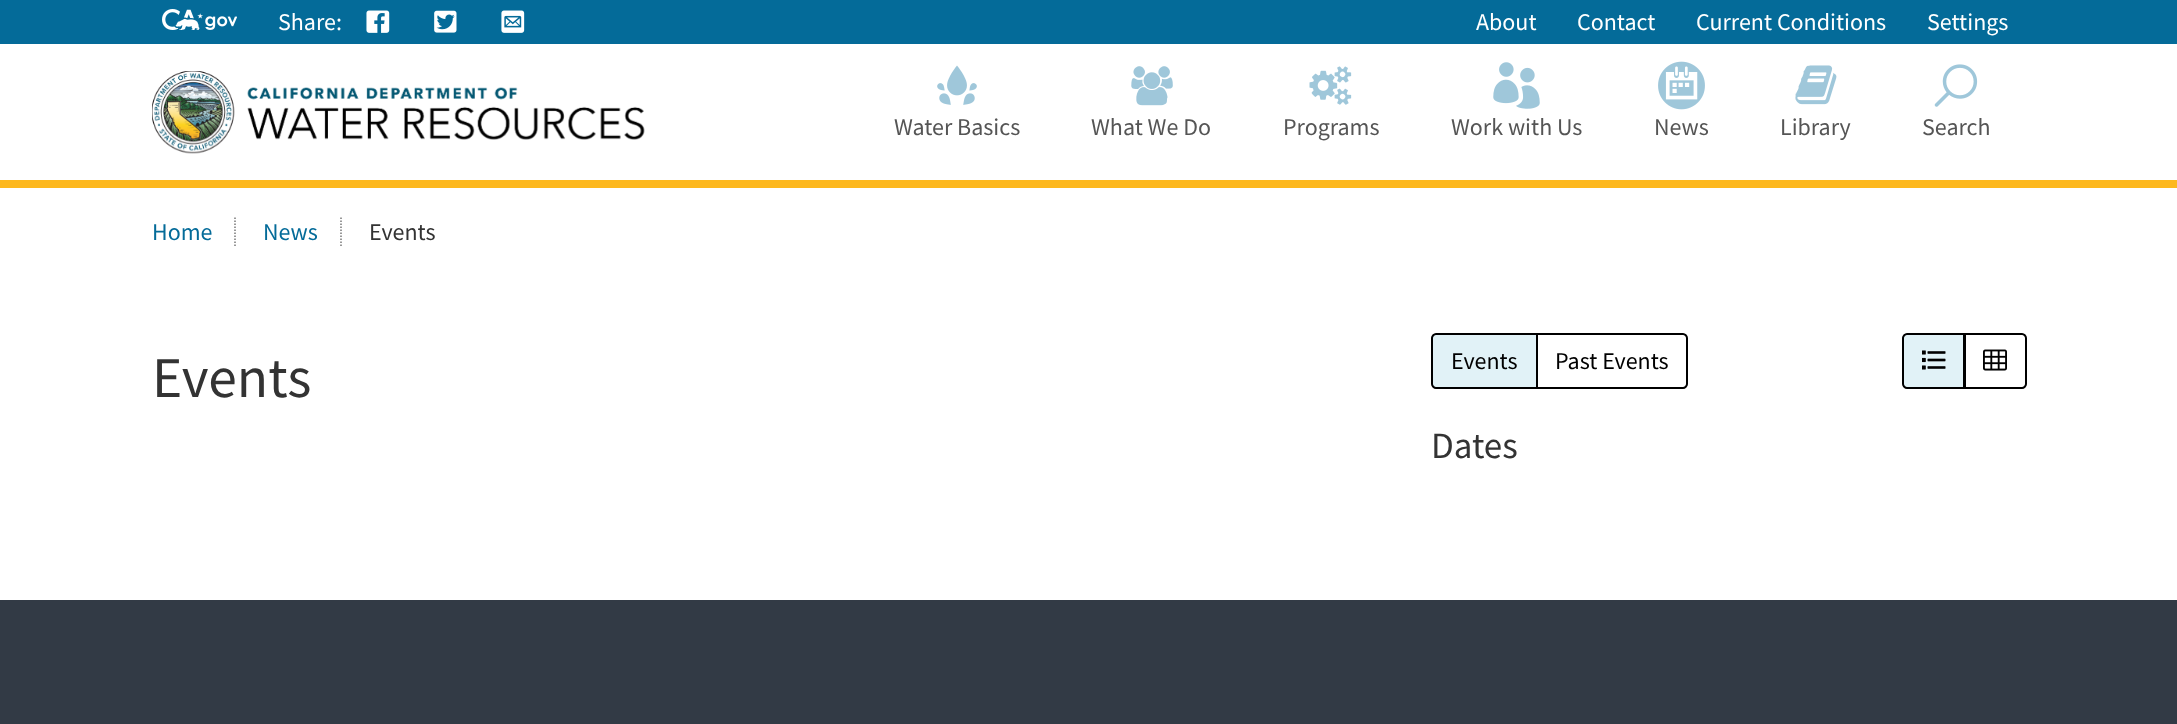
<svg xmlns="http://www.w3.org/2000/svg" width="2177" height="724">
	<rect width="100%" height="100%" fill="#FFFFFF" />
	<rect x="0" y="0" width="2177" height="44" fill="#046B99" />
	<image x="162" y="9" width="75" height="21" href="assets/img1.png" />
	<text x="278" y="30" font-family="Source Sans Pro" font-size="24" fill="#FFFFFF">Share:</text>
	<image x="366" y="10" width="24" height="23" href="assets/img2.png" />
	<image x="434" y="10" width="23" height="23" href="assets/img3.png" />
	<image x="501" y="10" width="24" height="23" href="assets/img4.png" />
	<g font-family="Source Sans Pro" font-size="24" fill="#FFFFFF">
		<text x="1476" y="30">About</text>
		<text x="1577" y="30">Contact</text>
		<text x="1696" y="30">Current Conditions</text>
		<text x="1927" y="30">Settings</text>
	</g>
	<image x="152" y="71" width="493" height="83" href="assets/img5.png" />
	<rect x="0" y="180" width="2177" height="8" fill="#FDB81E" />
	<image x="937" y="65" width="40" height="40" href="assets/img6.png" />
	<text x="894" y="135" font-family="Source Sans Pro" font-size="24" fill="#555555">Water Basics</text>
	<image x="1131" y="66" width="42" height="40" href="assets/img7.png" />
	<text x="1091" y="135" font-family="Source Sans Pro" font-size="24" fill="#555555">What We Do</text>
	<image x="1309" y="66" width="43" height="39" href="assets/img8.png" />
	<text x="1283" y="135" font-family="Source Sans Pro" font-size="24" fill="#555555">Programs</text>
	<image x="1493" y="62" width="47" height="47" href="assets/img9.png" />
	<text x="1451" y="135" font-family="Source Sans Pro" font-size="24" fill="#555555">Work with Us</text>
	<image x="1658" y="61" width="47" height="49" href="assets/img10.png" />
	<text x="1654" y="135" font-family="Source Sans Pro" font-size="24" fill="#555555">News</text>
	<image x="1795" y="65" width="42" height="40" href="assets/img11.png" />
	<text x="1780" y="135" font-family="Source Sans Pro" font-size="24" fill="#555555">Library</text>
	<image x="1934" y="64" width="44" height="43" href="assets/img12.png" />
	<text x="1922" y="135" font-family="Source Sans Pro" font-size="24" fill="#555555">Search</text>
	<text x="152" y="240" font-family="Source Sans Pro" font-size="24" fill="#046B99">Home</text>
	<path d="M235 217.5V246" fill="none" stroke="#777777" stroke-width="1.5" stroke-dasharray="1.5 1.5" />
	<text x="263" y="240" font-family="Source Sans Pro" font-size="24" fill="#046B99">News</text>
	<path d="M341 217.5V246" fill="none" stroke="#777777" stroke-width="1.5" stroke-dasharray="1.5 1.5" />
	<text x="369" y="240" font-family="Source Sans Pro" font-size="24" fill="#333333">Events</text>
	<text x="152" y="397" font-family="Source Sans Pro" font-size="57.5" fill="#333333">Events</text>
	<path d="M1537 334H1683C1685 334 1687 336 1687 338V384C1687 386 1685 388 1683 388H1537Z" fill="none" stroke="#000000" stroke-width="2" />
	<path d="M1436 334H1537V388H1436C1434 388 1432 386 1432 384V338C1432 336 1434 334 1436 334Z" fill="#E1F2F7" stroke="#000000" stroke-width="2" />
	<g font-family="Source Sans Pro" font-size="24" fill="#000000">
		<text x="1451" y="369">Events</text>
		<text x="1555" y="369">Past Events</text>
	</g>
	<path d="M1965 334H2022C2024 334 2026 336 2026 338V384C2026 386 2024 388 2022 388H1965Z" fill="none" stroke="#000000" stroke-width="2" />
	<path d="M1907 334H1964V388H1907C1905 388 1903 386 1903 384V338C1903 336 1905 334 1907 334Z" fill="#E1F2F7" stroke="#000000" stroke-width="2" />
	<image x="1922" y="350" width="24" height="20" href="assets/img13.png" />
	<image x="1983" y="349" width="24" height="22" href="assets/img14.png" />
	<text x="1431" y="458" font-family="Source Sans Pro" font-size="37" fill="#333333">Dates</text>
	<rect x="0" y="600" width="2177" height="124" fill="#323A45" />
</svg>
